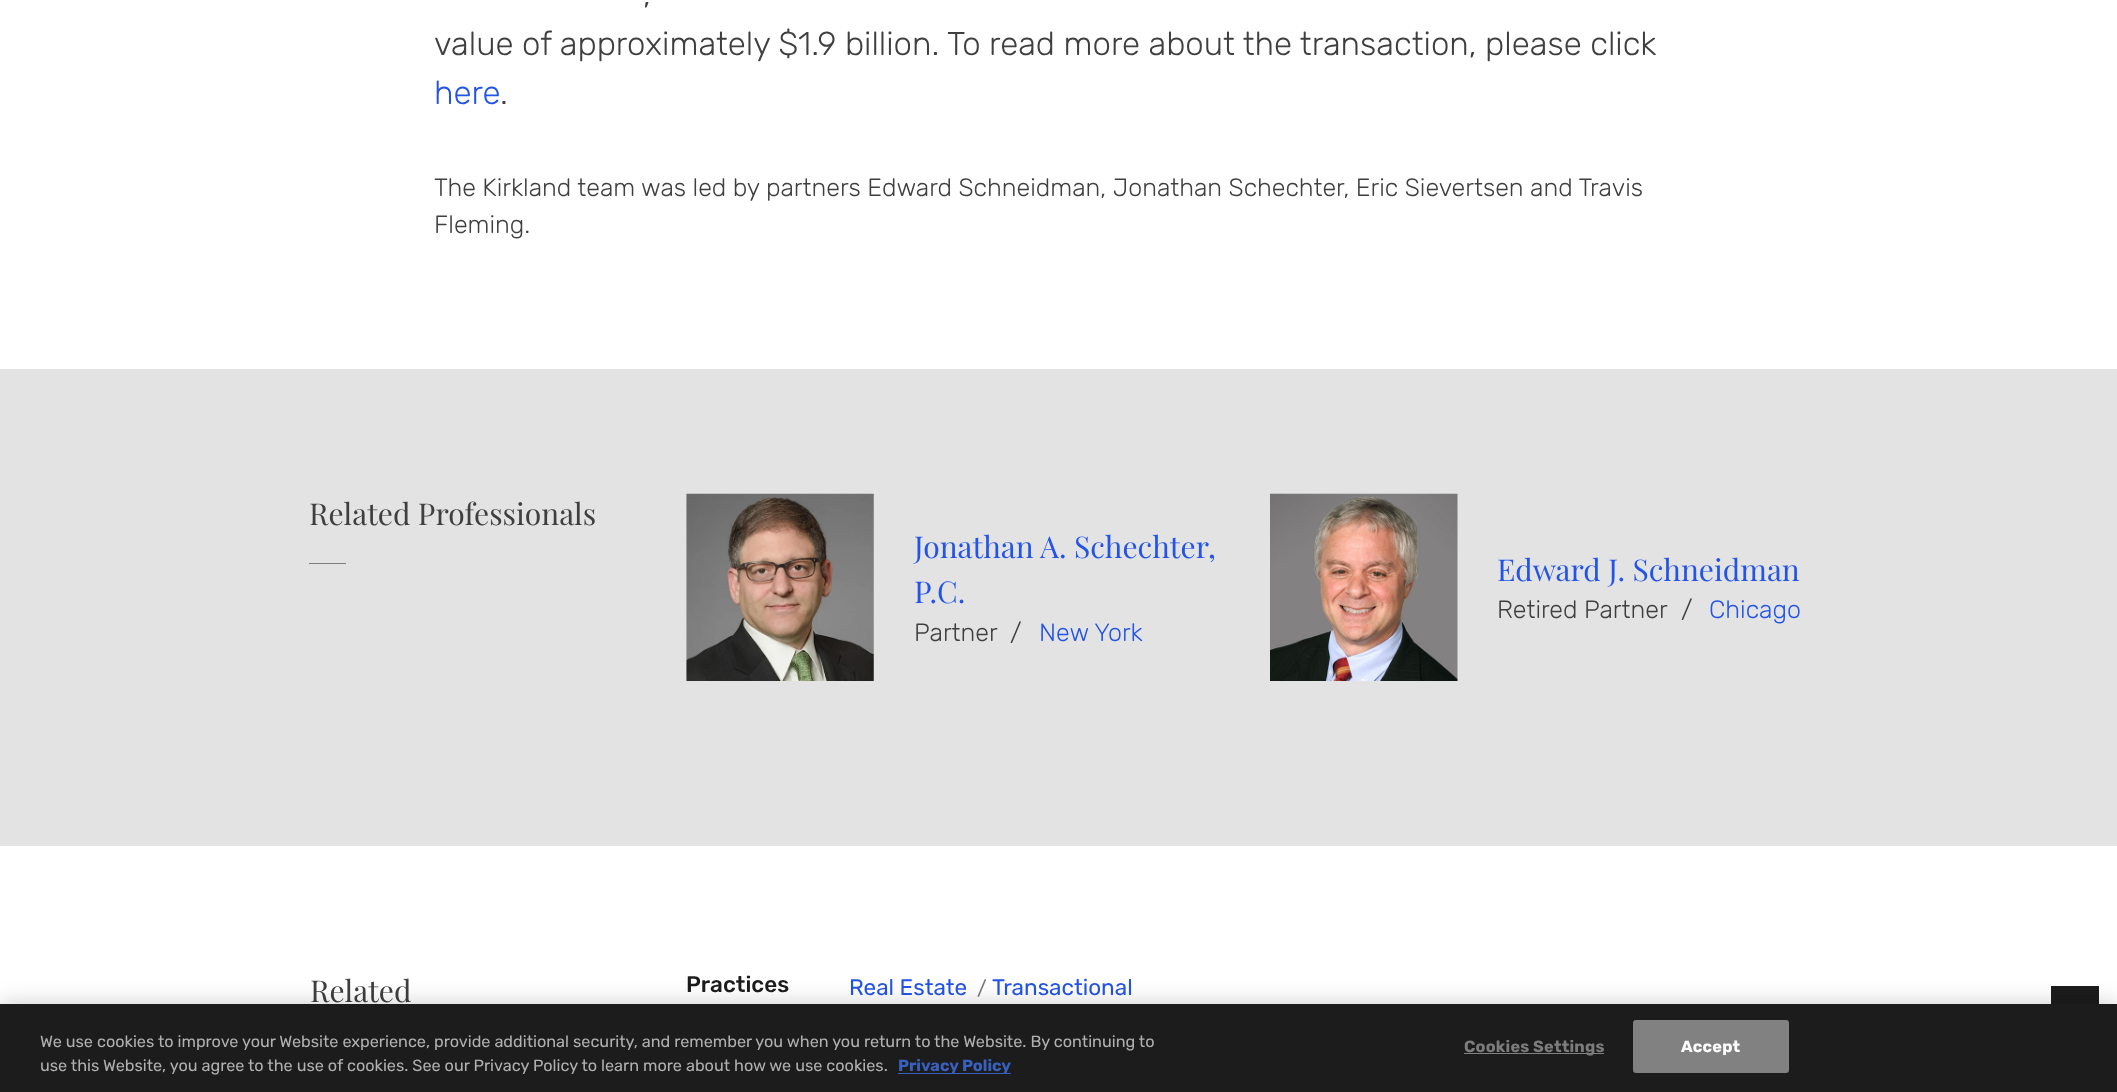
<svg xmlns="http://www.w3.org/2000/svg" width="2117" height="1092">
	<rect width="100%" height="100%" fill="#FFFFFF" />
	<g font-family="Rubik" font-size="33" font-weight="300" fill="#3F3F3F">
		<text x="643" y="5">,</text>
		<text x="434" y="55">value of approximately $1.9 billion. To read more about the transaction, please click</text>
	</g>
	<text x="434" y="104" font-family="Rubik" font-size="33" font-weight="300" fill="#2354E8">here</text>
	<text x="500" y="104" font-family="Rubik" font-size="33" font-weight="300" fill="#3F3F3F">.</text>
	<g font-family="Rubik" font-size="25" font-weight="300" fill="#3F3F3F">
		<text x="434" y="196">The Kirkland team was led by partners Edward Schneidman, Jonathan Schechter, Eric Sievertsen and Travis</text>
		<text x="434" y="233">Fleming.</text>
	</g>
	<rect x="0" y="369" width="2117" height="477" fill="#E3E3E3" />
	<text x="309" y="525" font-family="Playfair Display" font-size="30" fill="#3F3F3F">Related Professionals</text>
	<rect x="309" y="563" width="37" height="1" fill="#7C7C7C" />
	<image x="686" y="493" width="188" height="188" href="assets/img1.png" />
	<g font-family="Playfair Display" font-size="30" fill="#2354E8">
		<text x="914" y="558">Jonathan A. Schechter,</text>
		<text x="914" y="603">P.C.</text>
	</g>
	<g font-family="Rubik" font-size="25" font-weight="300" fill="#3F3F3F">
		<text x="914" y="641">Partner</text>
		<text x="1010" y="641">/</text>
	</g>
	<text x="1039" y="641" font-family="Rubik" font-size="25" font-weight="300" fill="#2354E8">New York</text>
	<image x="1270" y="493" width="188" height="188" href="assets/img2.png" />
	<text x="1497" y="581" font-family="Playfair Display" font-size="30" fill="#2354E8">Edward J. Schneidman</text>
	<g font-family="Rubik" font-size="25" font-weight="300" fill="#3F3F3F">
		<text x="1497" y="618">Retired Partner</text>
		<text x="1681" y="618">/</text>
	</g>
	<text x="1709" y="618" font-family="Rubik" font-size="25" font-weight="300" fill="#2354E8">Chicago</text>
	<text x="310" y="1002" font-family="Playfair Display" font-size="30" fill="#3F3F3F">Related</text>
	<text x="686" y="992" font-family="Rubik" font-size="22.5" font-weight="500" fill="#1C1C1C">Practices</text>
	<text x="849" y="995" font-family="Rubik" font-size="22.5" fill="#2354E8">Real Estate</text>
	<text x="977" y="995" font-family="Rubik" font-size="20" fill="#7C7C7C">/</text>
	<text x="992" y="995" font-family="Rubik" font-size="22.5" fill="#2354E8">Transactional</text>
	<rect x="2051" y="986" width="48" height="18" fill="#1C1C1C" />
	<rect x="0" y="1004" width="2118" height="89" fill="#000000" fill-opacity="0.2" filter="blur(11px)" />
	<rect x="0" y="1004" width="2117" height="88" fill="#1C1C1C" />
	<g font-family="Rubik" font-size="16.25" fill="#B0B0B0">
		<text x="40" y="1047">We use cookies to improve your Website experience, provide additional security, and remember you when you return to the Website. By continuing to</text>
		<text x="40" y="1071">use this Website, you agree to the use of cookies. See our Privacy Policy to learn more about how we use cookies.</text>
	</g>
	<rect x="898" y="1073" width="113" height="1" fill="#3860BE" />
	<text x="898" y="1071" font-family="Rubik" font-size="16.25" font-weight="700" fill="#3860BE">Privacy Policy</text>
	<rect x="1464" y="1053" width="140" height="1" fill="#818181" />
	<text x="1464" y="1052" font-family="Rubik" font-size="16.25" font-weight="700" letter-spacing="0.2" fill="#7C7C7C">Cookies Settings</text>
	<rect x="1633.5" y="1020.5" width="155" height="52" rx="2" fill="#818181" stroke="#818181" />
	<text x="1681" y="1052" font-family="Rubik" font-size="16.25" font-weight="700" letter-spacing="0.2" fill="#FFFFFF">Accept</text>
</svg>
